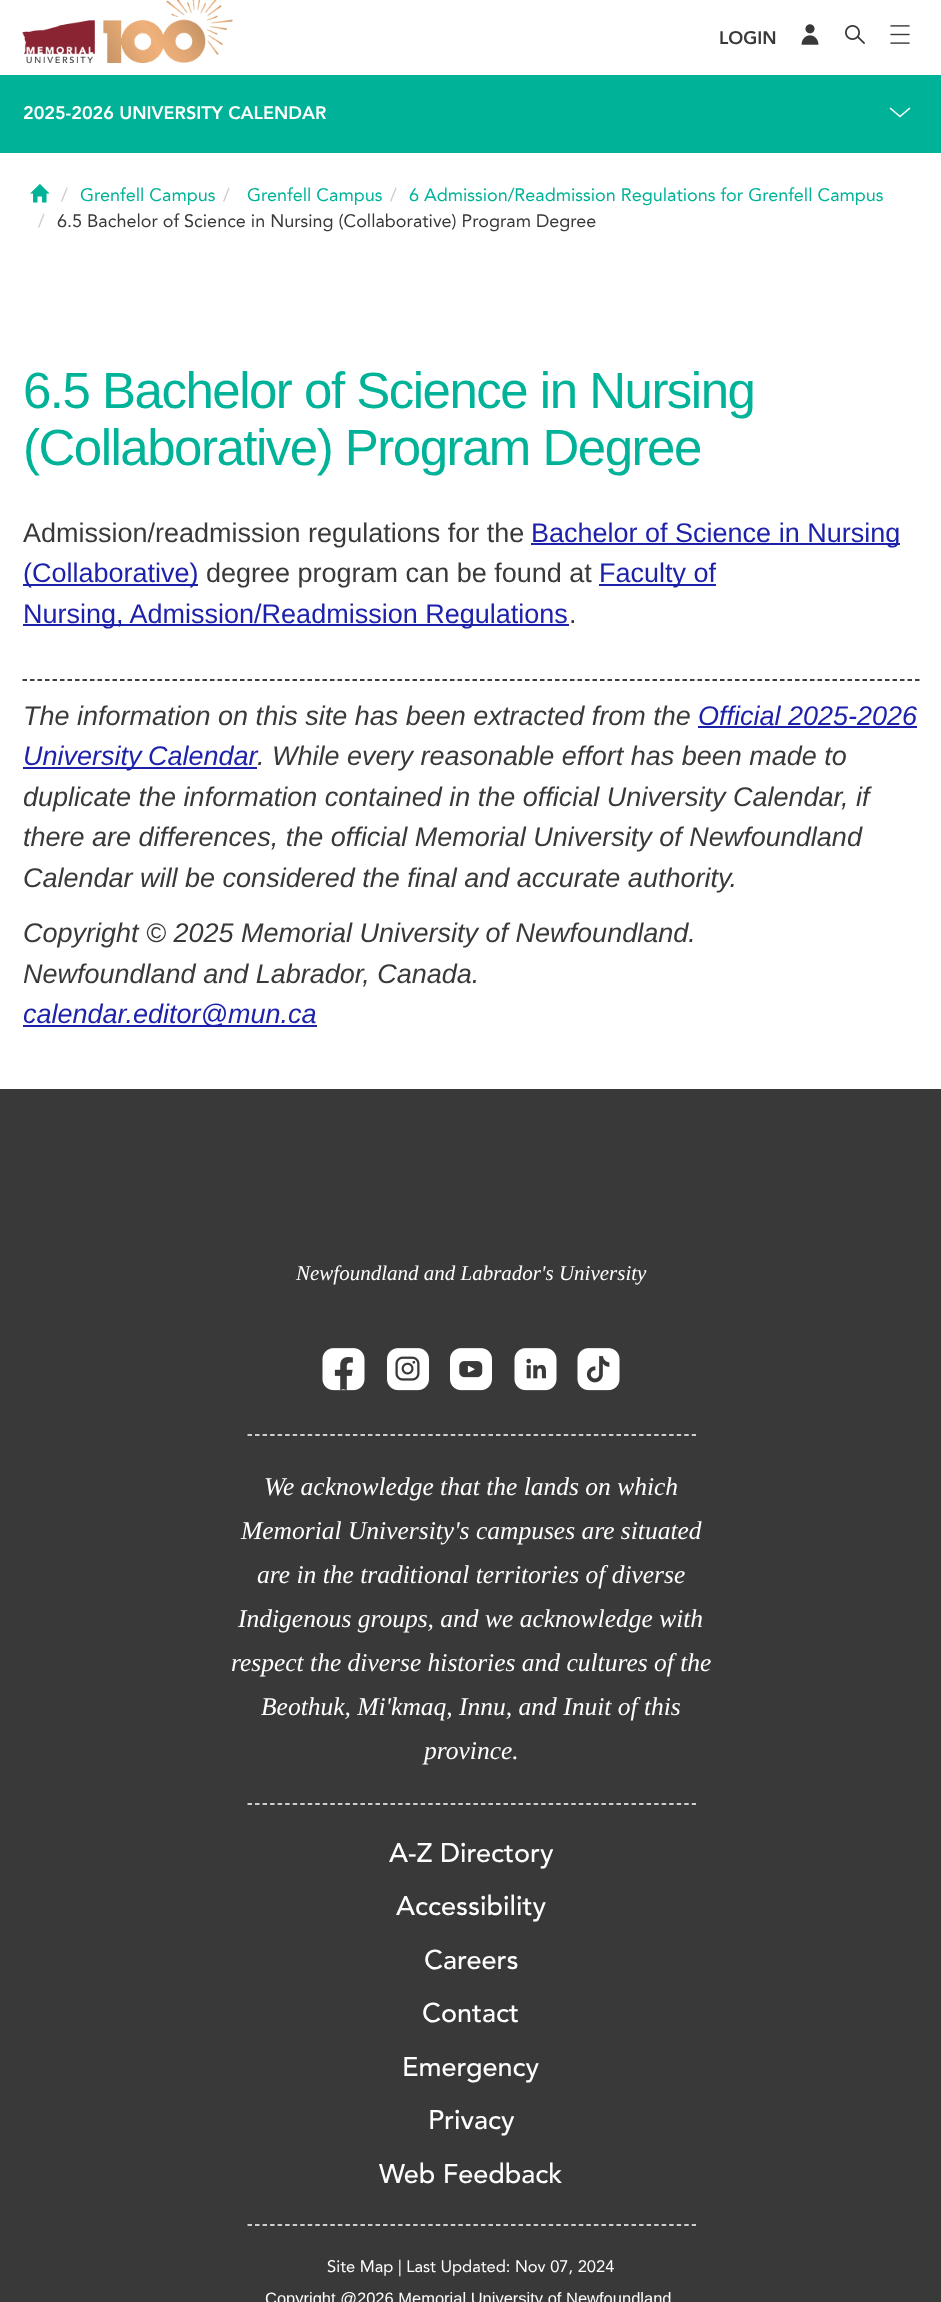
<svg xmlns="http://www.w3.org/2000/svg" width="941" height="2302">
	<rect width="100%" height="100%" fill="#FFFFFF" />
	<image x="22" y="0" width="211" height="63" href="assets/img1.png" />
	<text x="719" y="44" font-family="'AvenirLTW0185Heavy'" font-size="18" font-weight="900" fill="#393939">LOGIN</text>
	<image x="801" y="24" width="18" height="21" href="assets/img2.png" />
	<image x="845" y="25" width="20" height="19" href="assets/img3.png" />
	<image x="890" y="25" width="20" height="19" href="assets/img4.png" />
	<rect x="0" y="75" width="941" height="78" fill="#00B398" />
	<text x="23" y="119" font-family="'AvenirLTW0185Heavy'" font-size="18" font-weight="900" fill="#FFFFFF">2025-2026 UNIVERSITY CALENDAR</text>
	<path d="M889.5 108.5L900 117.5L910.5 108.5L909.5 107.5L900 115.5L890.5 107.5Z" fill="#FFFFFF" />
	<image x="30" y="184" width="20" height="19" href="assets/img5.png" />
	<text x="61" y="201" font-family="'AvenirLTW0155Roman'" font-size="18" fill="#CCCCCC">/</text>
	<text x="80" y="201" font-family="'AvenirLTW0155Roman'" font-size="18" fill="#00B398">Grenfell Campus</text>
	<text x="223" y="201" font-family="'AvenirLTW0155Roman'" font-size="18" fill="#CCCCCC">/</text>
	<text x="247" y="201" font-family="'AvenirLTW0155Roman'" font-size="18" fill="#00B398">Grenfell Campus</text>
	<text x="390" y="201" font-family="'AvenirLTW0155Roman'" font-size="18" fill="#CCCCCC">/</text>
	<text x="409" y="201" font-family="'AvenirLTW0155Roman'" font-size="18" fill="#00B398">6 Admission/Readmission Regulations for Grenfell Campus</text>
	<text x="38" y="227" font-family="'AvenirLTW0155Roman'" font-size="18" fill="#CCCCCC">/</text>
	<text x="57" y="227" font-family="'AvenirLTW0155Roman'" font-size="18" fill="#393939">6.5 Bachelor of Science in Nursing (Collaborative) Program Degree</text>
	<g font-family="Liberation Sans" font-size="51" letter-spacing="-1.5" fill="#00B398">
		<text x="23" y="408">6.5 Bachelor of Science in Nursing</text>
		<text x="23" y="465">(Collaborative) Program Degree</text>
	</g>
	<text x="23" y="542" font-family="Liberation Sans" font-size="27" fill="#393939">Admission/readmission regulations for the</text>
	<rect x="531" y="543" width="369" height="2" fill="#1E22AA" />
	<text x="531" y="542" font-family="Liberation Sans" font-size="27" fill="#1E22AA">Bachelor of Science in Nursing</text>
	<rect x="23" y="584" width="175" height="2" fill="#1E22AA" />
	<text x="23" y="582" font-family="Liberation Sans" font-size="27" fill="#1E22AA">(Collaborative)</text>
	<text x="206" y="582" font-family="Liberation Sans" font-size="27" fill="#393939">degree program can be found at</text>
	<rect x="599" y="584" width="117" height="2" fill="#1E22AA" />
	<text x="599" y="582" font-family="Liberation Sans" font-size="27" fill="#1E22AA">Faculty of</text>
	<rect x="23" y="624" width="546" height="2" fill="#1E22AA" />
	<text x="23" y="623" font-family="Liberation Sans" font-size="27" fill="#1E22AA">Nursing, Admission/Readmission Regulations</text>
	<text x="569" y="623" font-family="Liberation Sans" font-size="27" fill="#393939">.</text>
	<path d="M22.5 680H919.5" fill="none" stroke="#000000" stroke-width="1.5" stroke-dasharray="4.5 3" />
	<text x="23" y="725" font-family="Liberation Sans" font-size="27" font-style="italic" fill="#393939">The information on this site has been extracted from the</text>
	<text x="698" y="725" font-family="Liberation Sans" font-size="27" font-style="italic" fill="#1E22AA">Official 2025-2026</text>
	<rect x="698" y="726" width="219" height="2" fill="#1E22AA" />
	<rect x="23" y="767" width="234" height="2" fill="#1E22AA" />
	<text x="23" y="765" word-spacing="-1" font-family="Liberation Sans" font-size="27" font-style="italic" fill="#1E22AA">University Calendar</text>
	<g font-family="Liberation Sans" font-size="27" font-style="italic" fill="#393939">
		<text x="257" y="765">. While every reasonable effort has been made to</text>
		<text x="23" y="806">duplicate the information contained in the official University Calendar, if</text>
		<text x="23" y="846">there are differences, the official Memorial University of Newfoundland</text>
		<text x="23" y="887">Calendar will be considered the final and accurate authority.</text>
		<text x="23" y="942">Copyright © 2025 Memorial University of Newfoundland.</text>
		<text x="23" y="983">Newfoundland and Labrador, Canada.</text>
	</g>
	<rect x="23" y="1025" width="294" height="2" fill="#1E22AA" />
	<text x="23" y="1023" font-family="Liberation Sans" font-size="27" font-style="italic" fill="#1E22AA">calendar.editor@mun.ca</text>
	<rect x="0" y="1089" width="941" height="1213" fill="#393939" />
	<text x="296" y="1280" font-family="Liberation Serif" font-size="21" font-style="italic" fill="#FFFFFF">Newfoundland and Labrador's University</text>
	<image x="322" y="1348" width="43" height="43" href="assets/img6.png" />
	<image x="387" y="1348" width="42" height="43" href="assets/img7.png" />
	<image x="450" y="1348" width="42" height="43" href="assets/img8.png" />
	<image x="514" y="1348" width="43" height="43" href="assets/img9.png" />
	<image x="577" y="1348" width="43" height="43" href="assets/img10.png" />
	<path d="M247.5 1435H696" fill="none" stroke="#FFFFFF" stroke-width="1.5" stroke-dasharray="4.5 3.03" />
	<g font-family="Liberation Serif" font-size="25.5" font-style="italic" fill="#FFFFFF">
		<text x="264" y="1495">We acknowledge that the lands on which</text>
		<text x="241" y="1539">Memorial University's campuses are situated</text>
		<text x="257" y="1583">are in the traditional territories of diverse</text>
		<text x="238" y="1627">Indigenous groups, and we acknowledge with</text>
		<text x="231" y="1671">respect the diverse histories and cultures of the</text>
		<text x="261" y="1715">Beothuk, Mi'kmaq, Innu, and Inuit of this</text>
		<text x="424" y="1759">province.</text>
	</g>
	<path d="M247.5 1804H696" fill="none" stroke="#FFFFFF" stroke-width="1.5" stroke-dasharray="4.5 3.03" />
	<g font-family="'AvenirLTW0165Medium'" font-size="27" font-weight="500" fill="#FFFFFF">
		<text x="389" y="1862">A-Z Directory</text>
		<text x="396" y="1915">Accessibility</text>
		<text x="424" y="1969">Careers</text>
		<text x="422" y="2022">Contact</text>
		<text x="402" y="2076">Emergency</text>
		<text x="428" y="2129">Privacy</text>
		<text x="379" y="2183">Web Feedback</text>
	</g>
	<path d="M247.5 2225H696" fill="none" stroke="#FFFFFF" stroke-width="1.5" stroke-dasharray="4.5 3.03" />
	<text x="327" y="2272" font-family="'AvenirLTW0155Roman'" font-size="16.5" fill="#FFFFFF">Site Map | Last Updated: Nov 07, 2024</text>
	<text x="265" y="2304" font-family="Liberation Sans" font-size="16.5" fill="#FFFFFF">Copyright @2026 Memorial University of Newfoundland</text>
</svg>
